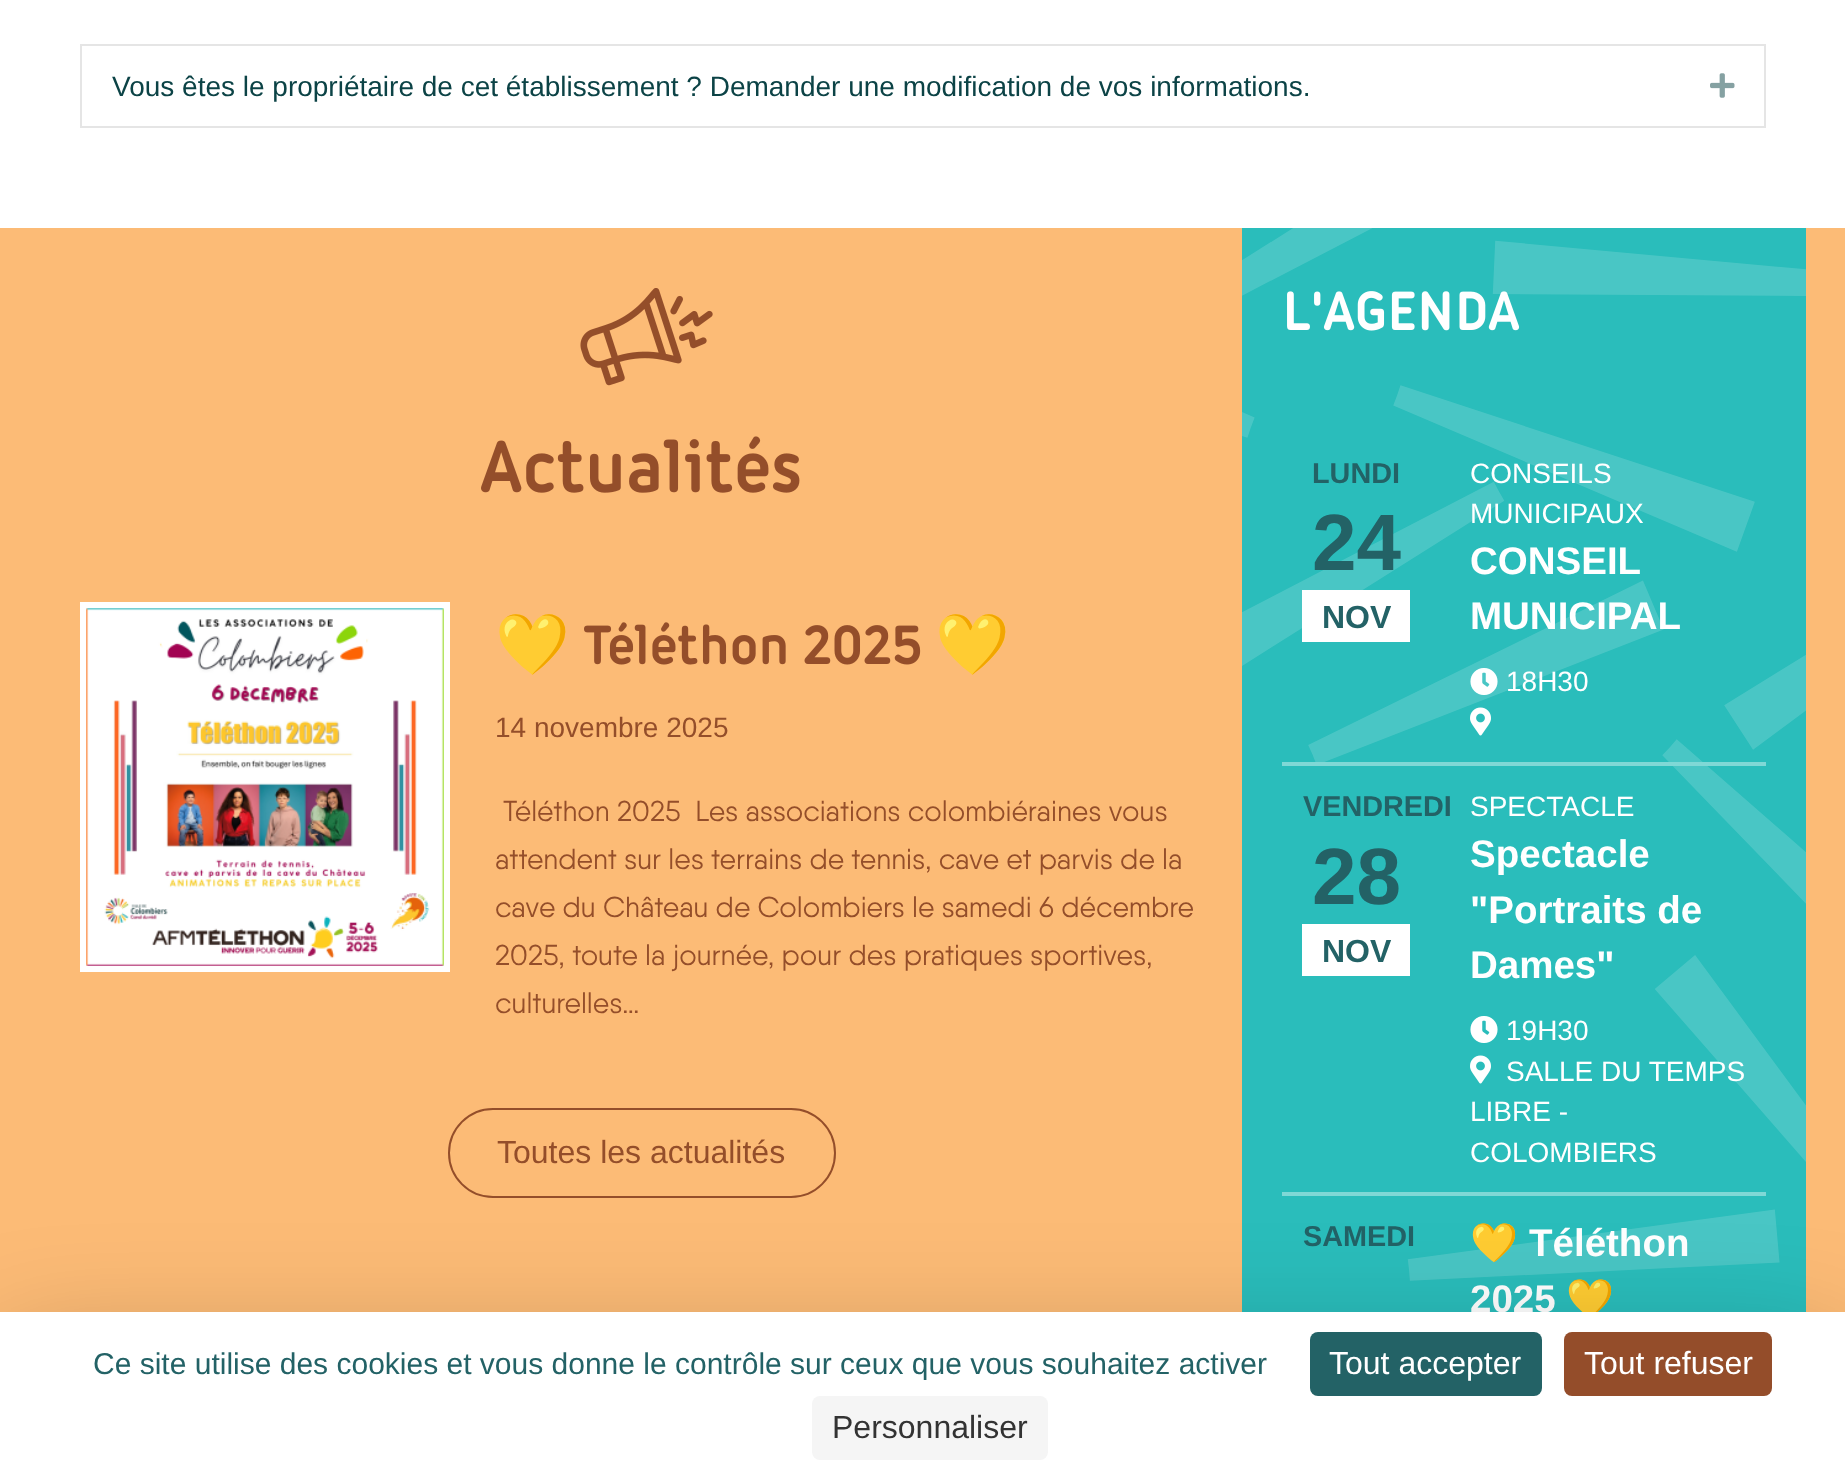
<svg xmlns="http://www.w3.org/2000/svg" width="1845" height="1479">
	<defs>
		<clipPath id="clip1"><rect x="74" y="1346" width="1214" height="34" /></clipPath>
	</defs>
	<rect width="100%" height="100%" fill="#FFFFFF" />
	<rect x="81" y="45" width="1684" height="82" fill="none" stroke="#E5E5E5" stroke-width="2" />
	<text x="112" y="96" font-family="Liberation Sans" font-size="28" fill="#0C4346">Vous êtes le propriétaire de cet établissement ? Demander une modification de vos informations.</text>
	<image x="1710" y="73" width="25" height="25" href="assets/img1.png" />
	<rect x="0" y="228" width="1845" height="1084" fill="#FCBB76" />
	<image x="580" y="288" width="133" height="98" href="assets/img2.png" />
	<image x="481" y="436" width="319" height="57" href="assets/img3.png" />
	<image x="80" y="602" width="370" height="370" href="assets/img4.png" />
	<text x="495" y="665" font-family="Noto Color Emoji" font-size="60" font-weight="700" fill="#944E2A">💛</text>
	<image x="584" y="622" width="337" height="43" href="assets/img5.png" />
	<text x="935" y="665" font-family="Noto Color Emoji" font-size="60" font-weight="700" fill="#944E2A">💛</text>
	<text x="495" y="737" font-family="Liberation Sans" font-size="28" fill="#944E2A">14 novembre 2025</text>
	<g font-family="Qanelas" font-size="28.8" fill="#944E2A">
		<text x="503" y="821" xml:space="preserve">Téléthon 2025  Les associations colombiéraines vous</text>
		<text x="495" y="869">attendent sur les terrains de tennis, cave et parvis de la</text>
		<text x="495" y="917">cave du Château de Colombiers le samedi 6 décembre</text>
		<text x="495" y="965">2025, toute la journée, pour des pratiques sportives,</text>
		<text x="495" y="1013">culturelles…</text>
	</g>
	<rect x="449" y="1109" width="386" height="88" rx="44" fill="none" stroke="#944E2A" stroke-width="2" />
	<text x="497" y="1163" font-family="Liberation Sans" font-size="32" fill="#944E2A">Toutes les actualités</text>
	<rect x="1242" y="228" width="564" height="1084" fill="#2ABDBB" />
	<image x="1242" y="228" width="564" height="1053" href="assets/img6.png" />
	<image x="1287" y="291" width="233" height="40" href="assets/img7.png" />
	<rect x="1282" y="762" width="484" height="4" fill="#7FD8D6" />
	<text x="1312" y="483" font-family="Liberation Sans" font-size="28.8" font-weight="700" fill="#236266">LUNDI</text>
	<text x="1312" y="570" font-family="Liberation Sans" font-size="80" font-weight="700" fill="#236266">24</text>
	<rect x="1302" y="590" width="108" height="52" fill="#FFFFFF" />
	<text x="1322" y="628" font-family="Liberation Sans" font-size="32" font-weight="700" fill="#236266">NOV</text>
	<g font-family="Liberation Sans" font-size="28" fill="#FFFFFF">
		<text x="1470" y="483">CONSEILS</text>
		<text x="1470" y="523">MUNICIPAUX</text>
	</g>
	<g font-family="Liberation Sans" font-size="38.5" font-weight="700" fill="#FFFFFF">
		<text x="1470" y="574">CONSEIL</text>
		<text x="1470" y="629">MUNICIPAL</text>
	</g>
	<image x="1470" y="668" width="28" height="27" href="assets/img8.png" />
	<text x="1506" y="691" font-family="Liberation Sans" font-size="28" fill="#FFFFFF">18H30</text>
	<image x="1470" y="707" width="21" height="29" href="assets/img9.png" />
	<rect x="1282" y="1192" width="484" height="4" fill="#7FD8D6" />
	<text x="1303" y="816" font-family="Liberation Sans" font-size="28.8" font-weight="700" fill="#236266">VENDREDI</text>
	<text x="1312" y="904" font-family="Liberation Sans" font-size="80" font-weight="700" fill="#236266">28</text>
	<rect x="1302" y="924" width="108" height="52" fill="#FFFFFF" />
	<text x="1322" y="962" font-family="Liberation Sans" font-size="32" font-weight="700" fill="#236266">NOV</text>
	<text x="1470" y="816" font-family="Liberation Sans" font-size="28" fill="#FFFFFF">SPECTACLE</text>
	<g font-family="Liberation Sans" font-size="38.5" font-weight="700" fill="#FFFFFF">
		<text x="1470" y="867">Spectacle</text>
		<text x="1470" y="923">"Portraits de</text>
		<text x="1470" y="978">Dames"</text>
	</g>
	<image x="1470" y="1016" width="28" height="27" href="assets/img10.png" />
	<text x="1506" y="1040" font-family="Liberation Sans" font-size="28" fill="#FFFFFF">19H30</text>
	<image x="1470" y="1055" width="21" height="29" href="assets/img9.png" />
	<g font-family="Liberation Sans" font-size="28" fill="#FFFFFF">
		<text x="1506" y="1081">SALLE DU TEMPS</text>
		<text x="1470" y="1121">LIBRE -</text>
		<text x="1470" y="1162">COLOMBIERS</text>
	</g>
	<text x="1303" y="1246" font-family="Liberation Sans" font-size="28.8" font-weight="700" fill="#236266">SAMEDI</text>
	<text x="1470" y="1256" font-family="Noto Color Emoji" font-size="38.5" font-weight="700" fill="#FFFFFF">💛</text>
	<g font-family="Liberation Sans" font-size="38.5" font-weight="700" fill="#FFFFFF">
		<text x="1529" y="1256">Téléthon</text>
		<text x="1470" y="1312">2025</text>
	</g>
	<text x="1566" y="1312" font-family="Noto Color Emoji" font-size="38.5" font-weight="700" fill="#FFFFFF">💛</text>
	<rect x="0" y="1352" width="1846" height="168" fill="#000000" fill-opacity="0.25" filter="blur(60px)" />
	<rect x="0" y="1312" width="1845" height="167" fill="#FFFFFF" />
	<g clip-path="url(#clip1)">
		<text x="93" y="1374" font-family="Liberation Sans" font-size="30" fill="#236266">Ce site utilise des cookies et vous donne le contrôle sur ceux que vous souhaitez activer</text>
	</g>
	<rect x="1310" y="1332" width="232" height="64" rx="8" fill="#236266" />
	<text x="1329" y="1374" font-family="Liberation Sans" font-size="32" fill="#FFFFFF">Tout accepter</text>
	<rect x="1564" y="1332" width="208" height="64" rx="8" fill="#944D2A" />
	<text x="1584" y="1374" font-family="Liberation Sans" font-size="32" fill="#FFFFFF">Tout refuser</text>
	<rect x="812" y="1396" width="236" height="64" rx="8" fill="#F5F5F5" />
	<text x="832" y="1438" font-family="Liberation Sans" font-size="32" fill="#333333">Personnaliser</text>
</svg>
